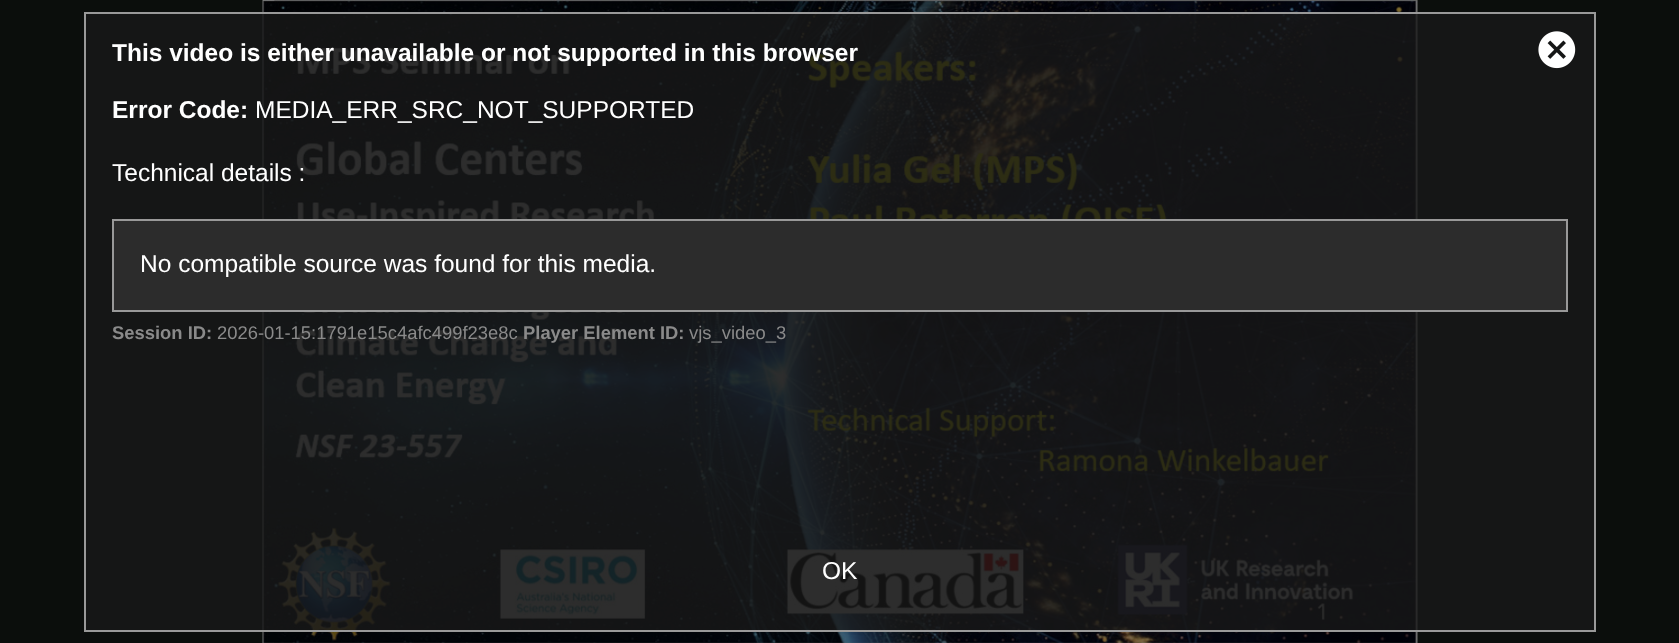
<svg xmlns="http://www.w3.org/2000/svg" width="1679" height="643">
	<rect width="100%" height="100%" fill="#0B0E0C" />
	<rect x="86" y="14" width="1508" height="616" fill="#151616" />
	<image x="262" y="0" width="1156" height="643" href="assets/img1.png" />
	<rect x="85" y="13" width="1510" height="618" fill="none" stroke="#999999" stroke-width="2" />
	<g font-family="Liberation Sans" font-size="24.5" font-weight="700" fill="#FFFFFF">
		<text x="112" y="61">This video is either unavailable or not supported in this browser</text>
		<text x="112" y="118">Error Code:</text>
	</g>
	<g font-family="Liberation Sans" font-size="24.5" fill="#FFFFFF">
		<text x="255" y="118">MEDIA_ERR_SRC_NOT_SUPPORTED</text>
		<text x="112" y="181">Technical details :</text>
	</g>
	<rect x="113" y="220" width="1454" height="91" fill="#2C2C2C" stroke="#999999" stroke-width="2" />
	<text x="140" y="272" font-family="Liberation Sans" font-size="24.5" fill="#FFFFFF">No compatible source was found for this media.</text>
	<text x="112" y="339" font-family="Liberation Sans" font-size="18.4" font-weight="700" fill="#8A8A8A">Session ID:</text>
	<text x="217" y="339" font-family="Liberation Sans" font-size="18.4" fill="#8A8A8A">2026-01-15:1791e15c4afc499f23e8c</text>
	<text x="523" y="339" font-family="Liberation Sans" font-size="18.4" font-weight="700" fill="#8A8A8A">Player Element ID:</text>
	<text x="689" y="339" font-family="Liberation Sans" font-size="18.4" fill="#8A8A8A">vjs_video_3</text>
	<image x="1538" y="31" width="38" height="38" href="assets/img2.png" />
	<text x="822" y="579" font-family="Liberation Sans" font-size="24.5" fill="#FFFFFF">OK</text>
</svg>
